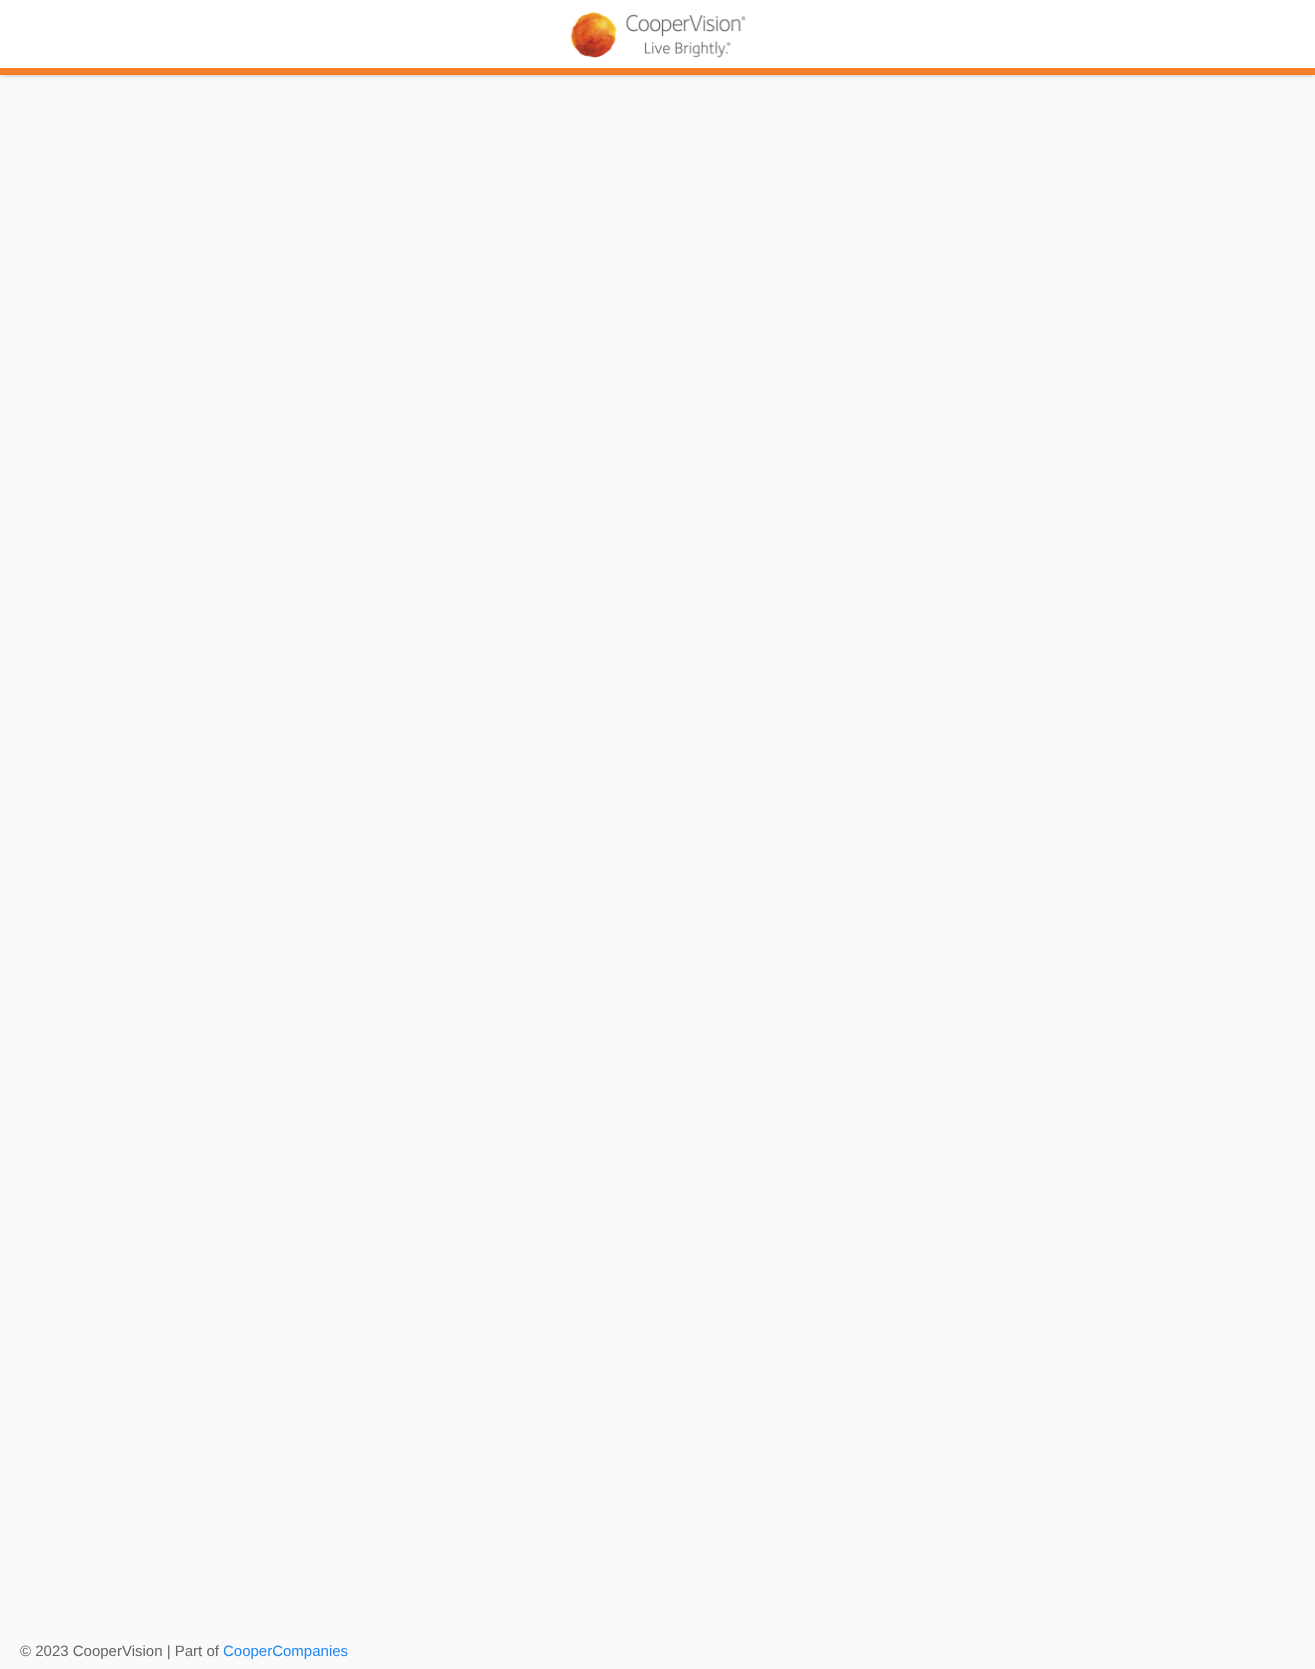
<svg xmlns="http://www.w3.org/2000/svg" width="1315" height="1669">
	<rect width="100%" height="100%" fill="#FAFAFA" />
	<rect x="1" y="3" width="1313" height="72" fill="#000000" fill-opacity="0.3" filter="blur(2.5px)" />
	<rect x="0" y="0" width="1315" height="68" fill="#FFFFFF" />
	<rect x="0" y="68" width="1315" height="7" fill="#F58025" />
	<image x="570" y="12" width="176" height="46" href="assets/img1.png" />
	<text x="20" y="1656" font-family="Liberation Sans" font-size="15" fill="#636466">© 2023 CooperVision | Part of</text>
	<text x="223" y="1656" font-family="Liberation Sans" font-size="15" fill="#1E87F0">CooperCompanies</text>
</svg>
